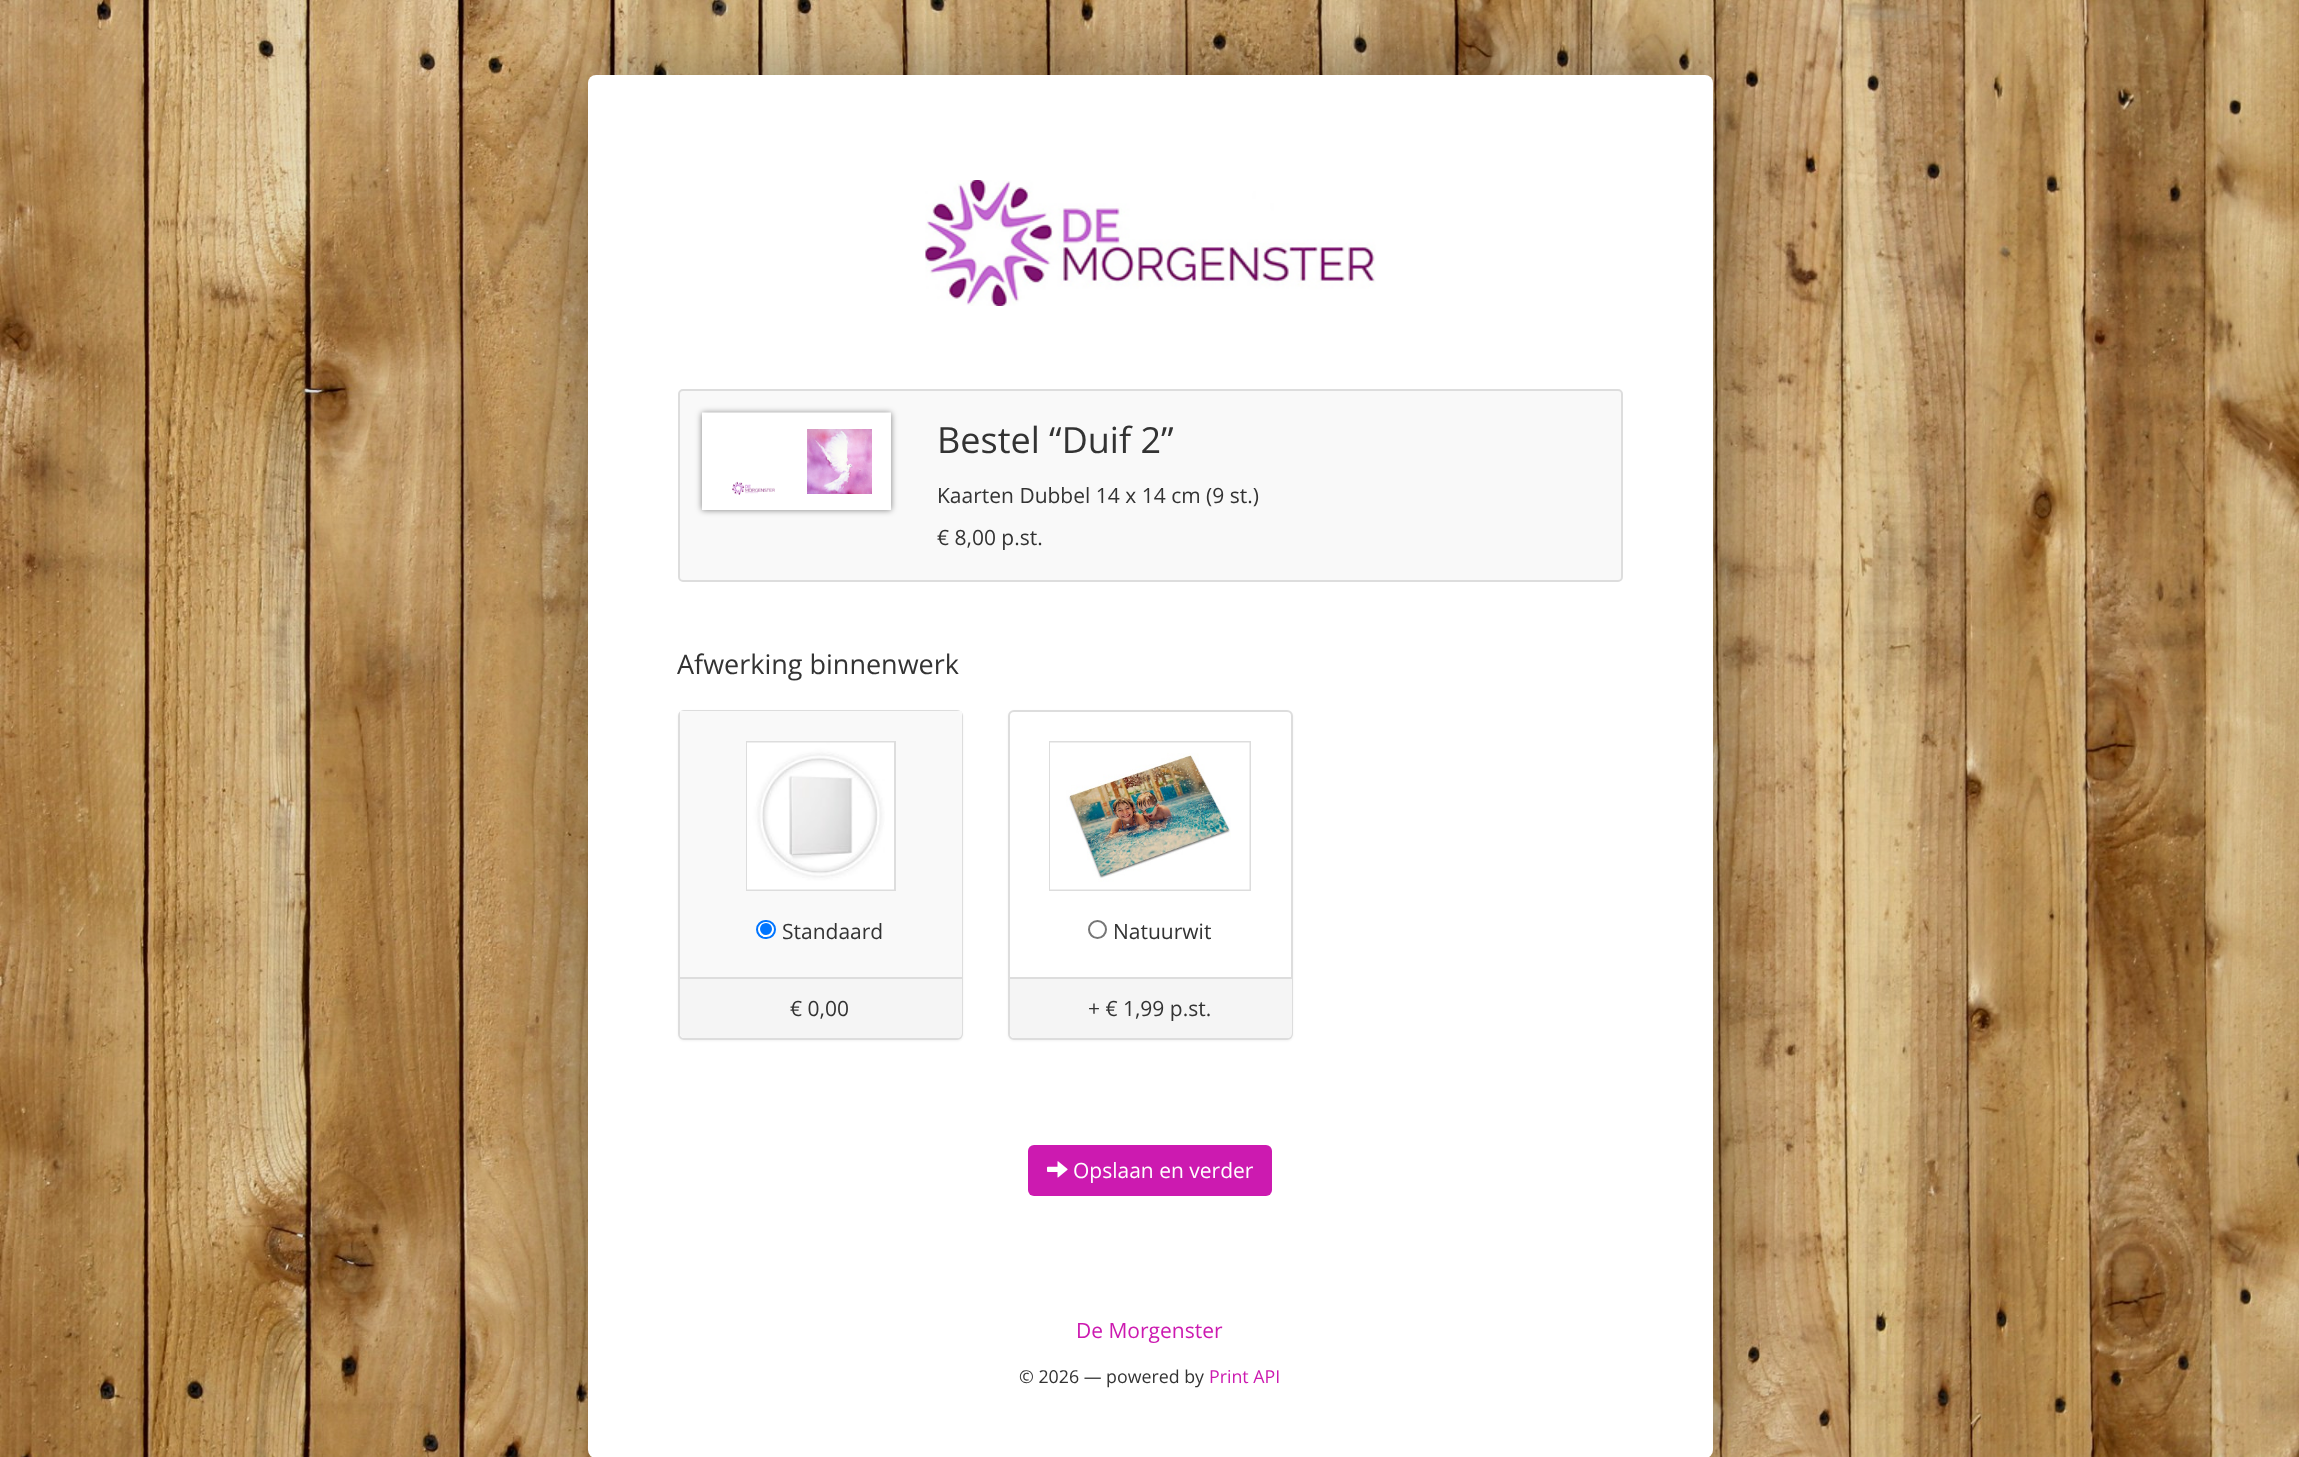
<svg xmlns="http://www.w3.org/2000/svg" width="2299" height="1457">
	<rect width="100%" height="100%" fill="#FFFFFF" />
	<image x="0" y="0" width="2299" height="1457" href="assets/img1.png" />
	<rect x="588" y="75" width="1125" height="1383" rx="8" fill="#000000" fill-opacity="0.4" filter="blur(45px)" />
	<rect x="588" y="75" width="1125" height="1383" rx="8" fill="#FFFFFF" />
	<image x="925" y="180" width="451" height="126" href="assets/img2.png" />
	<rect x="679" y="390" width="943" height="191" rx="4" fill="#F9F9F9" stroke="#DDDDDD" stroke-width="2" />
	<rect x="702" y="413" width="189" height="97" fill="#000000" fill-opacity="0.5" filter="blur(3px)" />
	<image x="702" y="412" width="189" height="98" href="assets/img3.png" />
	<text x="937" y="453" font-family="Open Sans" font-size="36" fill="#333333">Bestel “Duif 2”</text>
	<g font-family="Open Sans" font-size="21" fill="#333333">
		<text x="937" y="503">Kaarten Dubbel 14 x 14 cm (9 st.)</text>
		<text x="937" y="545">€ 8,00 p.st.</text>
	</g>
	<text x="677" y="674" font-family="Open Sans" font-size="27" fill="#333333">Afwerking binnenwerk</text>
	<rect x="678" y="711" width="285" height="330" rx="6" fill="#000000" fill-opacity="0.05" filter="blur(1px)" />
	<rect x="679" y="711" width="283" height="328" rx="5" fill="#FFFFFF" stroke="#DDDDDD" stroke-width="2" />
	<rect x="680" y="711" width="282" height="266" fill="#F9F9F9" />
	<rect x="747" y="742" width="148" height="148" fill="none" stroke="#DDDDDD" stroke-width="2" />
	<image x="747" y="742" width="147" height="148" href="assets/img4.png" />
	<rect x="757" y="921" width="18" height="17" rx="8.5" fill="#FFFFFF" stroke="#0075FF" stroke-width="2" />
	<circle cx="766" cy="929" r="6" fill="#0075FF" />
	<text x="782" y="939" font-family="Open Sans" font-size="21" fill="#333333">Standaard</text>
	<path d="M680 977H962V1033C962 1036 960 1038 957 1038H685C682 1038 680 1036 680 1033Z" fill="#F5F5F5" />
	<rect x="680" y="977" width="282" height="2" fill="#DDDDDD" />
	<text x="790" y="1016" font-family="Open Sans" font-size="21" fill="#333333">€ 0,00</text>
	<rect x="1008" y="711" width="285" height="330" rx="6" fill="#000000" fill-opacity="0.05" filter="blur(1px)" />
	<rect x="1009" y="711" width="283" height="328" rx="5" fill="#FFFFFF" stroke="#DDDDDD" stroke-width="2" />
	<rect x="1050" y="742" width="200" height="148" fill="none" stroke="#DDDDDD" stroke-width="2" />
	<image x="1050" y="742" width="200" height="148" href="assets/img5.png" />
	<circle cx="1097.5" cy="929.5" r="8.5" fill="none" stroke="#767676" stroke-width="2" />
	<text x="1113" y="939" font-family="Open Sans" font-size="21" fill="#333333">Natuurwit</text>
	<path d="M1010 977H1292V1033C1292 1036 1290 1038 1287 1038H1015C1012 1038 1010 1036 1010 1033Z" fill="#F5F5F5" />
	<rect x="1010" y="977" width="282" height="2" fill="#DDDDDD" />
	<text x="1088" y="1016" font-family="Open Sans" font-size="21" fill="#333333">+ € 1,99 p.st.</text>
	<rect x="1028" y="1145" width="244" height="51" rx="6" fill="#CC1AB0" />
	<image x="1047" y="1161" width="21" height="17" href="assets/img6.png" />
	<text x="1073" y="1178" font-family="Open Sans" font-size="21" fill="#FFFFFF">Opslaan en verder</text>
	<text x="1076" y="1338" font-family="Open Sans" font-size="21" fill="#CC1AB0">De Morgenster</text>
	<text x="1019" y="1383" font-family="Open Sans" font-size="17.8" fill="#333333">© 2026 — powered by</text>
	<text x="1209" y="1383" font-family="Open Sans" font-size="17.8" fill="#CC1AB0">Print API</text>
</svg>
